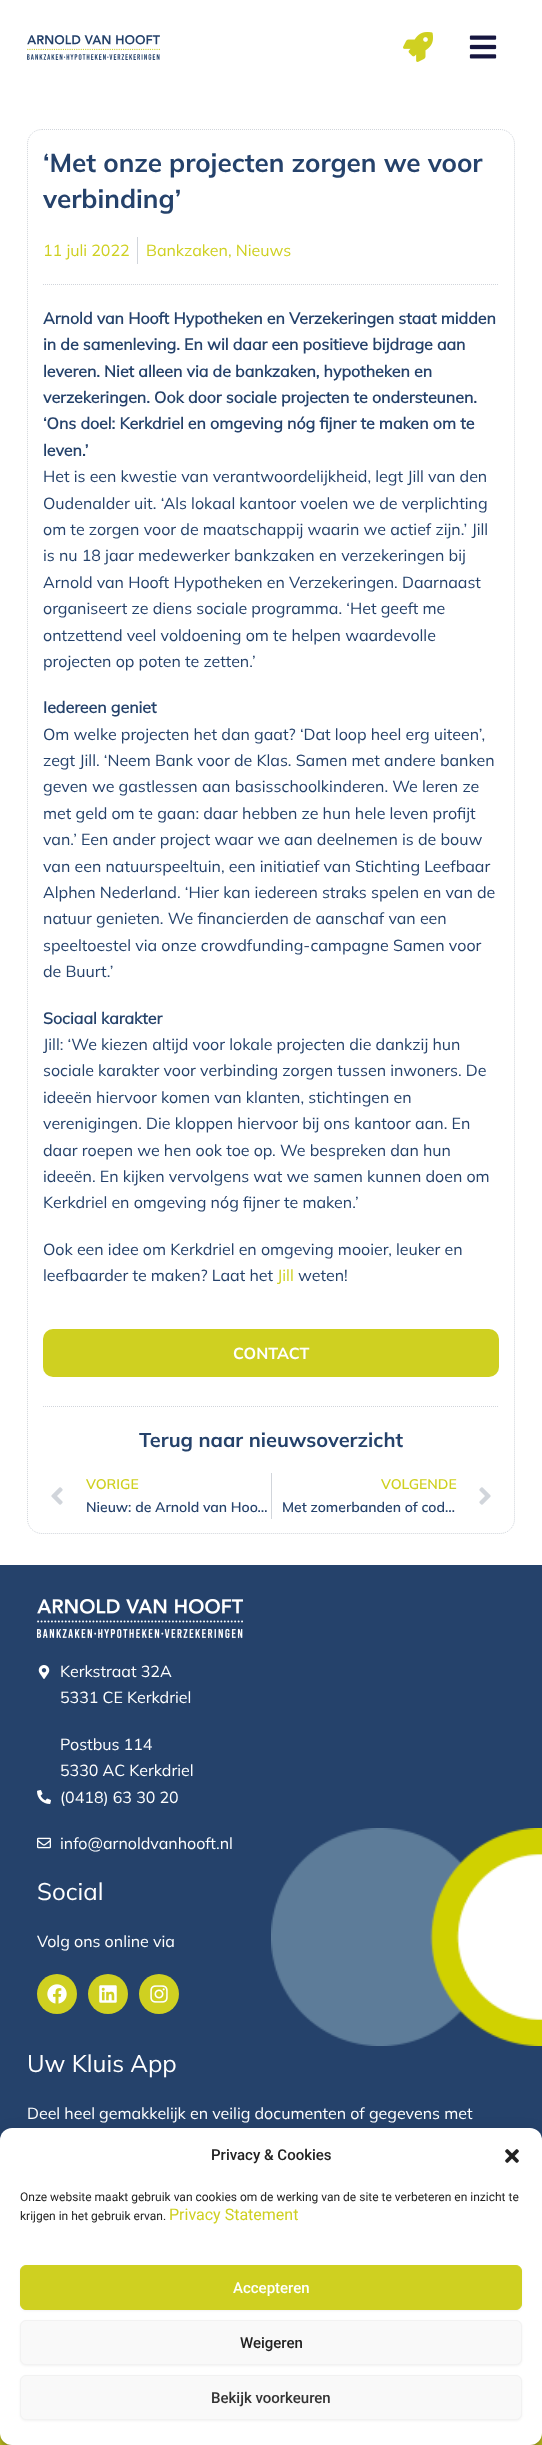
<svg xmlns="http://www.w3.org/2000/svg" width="542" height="2445">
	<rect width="100%" height="100%" fill="#FFFFFF" />
	<image x="27" y="35" width="133" height="25" href="assets/img1.png" />
	<image x="403" y="32" width="30" height="30" href="assets/img2.png" />
	<image x="469" y="35" width="28" height="24" href="assets/img3.png" />
	<path d="M42 129.5H500C508 129.5 514.5 136 514.5 144V1519C514.5 1527 508 1533.5 500 1533.5H42C34 1533.5 27.5 1527 27.5 1519V144C27.5 136 34 129.5 42 129.5Z" fill="none" stroke="#D1D5DB" stroke-dasharray="1 1" />
	<g font-family="Mulish" font-size="26" font-weight="700" fill="#25426B">
		<text x="43" y="172">‘Met onze projecten zorgen we voor</text>
		<text x="43" y="208">verbinding’</text>
	</g>
	<text x="43" y="256" font-family="Mulish" font-size="16" fill="#CFD021">11 juli 2022</text>
	<rect x="137" y="237" width="1" height="27" fill="#D1D5DB" />
	<text x="146" y="256" font-family="Mulish" font-size="16" fill="#CFD021">Bankzaken, Nieuws</text>
	<path d="M43 284.5H499" fill="none" stroke="#D1D5DB" stroke-dasharray="1 1" />
	<g font-family="'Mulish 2'" font-size="16" font-weight="700" fill="#25426B">
		<text x="43" y="324">Arnold van Hooft Hypotheken en Verzekeringen staat midden</text>
		<text x="43" y="350">in de samenleving. En wil daar een positieve bijdrage aan</text>
		<text x="43" y="377">leveren. Niet alleen via de bankzaken, hypotheken en</text>
		<text x="43" y="403">verzekeringen. Ook door sociale projecten te ondersteunen.</text>
		<text x="43" y="429">‘Ons doel: Kerkdriel en omgeving nóg fijner te maken om te</text>
		<text x="43" y="456">leven.’</text>
	</g>
	<g font-family="Mulish" font-size="16" fill="#25426B">
		<text x="43" y="482">Het is een kwestie van verantwoordelijkheid, legt Jill van den</text>
		<text x="43" y="509">Oudenalder uit. ‘Als lokaal kantoor voelen we de verplichting</text>
		<text x="43" y="535">om te zorgen voor de maatschappij waarin we actief zijn.’ Jill</text>
		<text x="43" y="561">is nu 18 jaar medewerker bankzaken en verzekeringen bij</text>
		<text x="43" y="588">Arnold van Hooft Hypotheken en Verzekeringen. Daarnaast</text>
		<text x="43" y="614">organiseert ze diens sociale programma. ‘Het geeft me</text>
		<text x="43" y="641">ontzettend veel voldoening om te helpen waardevolle</text>
		<text x="43" y="667">projecten op poten te zetten.’</text>
	</g>
	<text x="43" y="713" font-family="'Mulish 2'" font-size="16" font-weight="700" fill="#25426B">Iedereen geniet</text>
	<g font-family="Mulish" font-size="16" fill="#25426B">
		<text x="43" y="740">Om welke projecten het dan gaat? ‘Dat loop heel erg uiteen’,</text>
		<text x="43" y="766">zegt Jill. ‘Neem Bank voor de Klas. Samen met andere banken</text>
		<text x="43" y="792">geven we gastlessen aan basisschoolkinderen. We leren ze</text>
		<text x="43" y="819">met geld om te gaan: daar hebben ze hun hele leven profijt</text>
		<text x="43" y="845">van.’ Een ander project waar we aan deelnemen is de bouw</text>
		<text x="43" y="872">van een natuurspeeltuin, een initiatief van Stichting Leefbaar</text>
		<text x="43" y="898">Alphen Nederland. ‘Hier kan iedereen straks spelen en van de</text>
		<text x="43" y="924">natuur genieten. We financierden de aanschaf van een</text>
		<text x="43" y="951">speeltoestel via onze crowdfunding-campagne Samen voor</text>
		<text x="43" y="977">de Buurt.’</text>
	</g>
	<text x="43" y="1024" font-family="'Mulish 2'" font-size="16" font-weight="700" fill="#25426B">Sociaal karakter</text>
	<g font-family="Mulish" font-size="16" fill="#25426B">
		<text x="43" y="1050">Jill: ‘We kiezen altijd voor lokale projecten die dankzij hun</text>
		<text x="43" y="1076">sociale karakter voor verbinding zorgen tussen inwoners. De</text>
		<text x="43" y="1103">ideeën hiervoor komen van klanten, stichtingen en</text>
		<text x="43" y="1129">verenigingen. Die kloppen hiervoor bij ons kantoor aan. En</text>
		<text x="43" y="1156">daar roepen we hen ook toe op. We bespreken dan hun</text>
		<text x="43" y="1182">ideeën. En kijken vervolgens wat we samen kunnen doen om</text>
		<text x="43" y="1208">Kerkdriel en omgeving nóg fijner te maken.’</text>
		<text x="43" y="1255">Ook een idee om Kerkdriel en omgeving mooier, leuker en</text>
		<text x="43" y="1281">leefbaarder te maken? Laat het</text>
	</g>
	<text x="277" y="1281" font-family="Mulish" font-size="16" fill="#CFD021">Jill</text>
	<text x="298" y="1281" font-family="Mulish" font-size="16" fill="#25426B">weten!</text>
	<rect x="43" y="1329" width="456" height="48" rx="10" fill="#CFD021" />
	<text x="233" y="1359" font-family="Mulish" font-size="16" font-weight="700" fill="#FFFFFF">CONTACT</text>
	<path d="M43 1406.5H499" fill="none" stroke="#D1D5DB" stroke-dasharray="1 1" />
	<text x="139" y="1447" font-family="Mulish" font-size="20" font-weight="700" fill="#25426B">Terug naar nieuwsoverzicht</text>
	<image x="51" y="1487" width="12" height="18" href="assets/img4.png" />
	<text x="86" y="1489" font-family="Mulish" font-size="14" font-weight="600" fill="#CFD021">VORIGE</text>
	<text x="86" y="1512" font-family="Mulish" font-size="14" font-weight="600" fill="#25426B">Nieuw: de Arnold van Hoo…</text>
	<rect x="271" y="1473" width="1" height="46" fill="#D1D5DB" />
	<text x="381" y="1489" font-family="Mulish" font-size="14" font-weight="600" fill="#CFD021">VOLGENDE</text>
	<text x="282" y="1512" font-family="Mulish" font-size="14" font-weight="600" fill="#25426B">Met zomerbanden of cod…</text>
	<image x="479" y="1487" width="12" height="18" href="assets/img5.png" />
	<rect x="0" y="1565" width="542" height="575" fill="#25426B" />
	<image x="271" y="1828" width="271" height="218" href="assets/img6.png" />
	<image x="37" y="1599" width="206" height="39" href="assets/img7.png" />
	<image x="38" y="1665" width="12" height="14" href="assets/img8.png" />
	<g font-family="Mulish" font-size="16" fill="#FFFFFF">
		<text x="60" y="1677">Kerkstraat 32A</text>
		<text x="60" y="1703">5331 CE Kerkdriel</text>
		<text x="60" y="1750">Postbus 114</text>
		<text x="60" y="1776">5330 AC Kerkdriel</text>
	</g>
	<image x="37" y="1790" width="14" height="14" href="assets/img9.png" />
	<text x="60" y="1803" font-family="Mulish" font-size="16" fill="#FFFFFF">(0418) 63 30 20</text>
	<image x="37" y="1837" width="14" height="12" href="assets/img10.png" />
	<text x="60" y="1849" font-family="Mulish" font-size="16" fill="#FFFFFF">info@arnoldvanhooft.nl</text>
	<text x="37" y="1900" font-family="Mulish" font-size="24" fill="#FFFFFF">Social</text>
	<text x="37" y="1947" font-family="Mulish" font-size="16" fill="#FFFFFF">Volg ons online via</text>
	<circle cx="57" cy="1994" r="20" fill="#CFD021" />
	<image x="47" y="1984" width="20" height="20" href="assets/img11.png" />
	<circle cx="108" cy="1994" r="20" fill="#CFD021" />
	<image x="99" y="1985" width="18" height="18" href="assets/img12.png" />
	<circle cx="159" cy="1994" r="20" fill="#CFD021" />
	<image x="150" y="1985" width="18" height="18" href="assets/img13.png" />
	<text x="27" y="2072" font-family="Mulish" font-size="24" fill="#FFFFFF">Uw Kluis App</text>
	<text x="27" y="2119" font-family="Mulish" font-size="16" fill="#FFFFFF">Deel heel gemakkelijk en veilig documenten of gegevens met</text>
	<rect x="0" y="2433" width="542" height="12" fill="#CFD021" />
	<rect x="0" y="2134" width="542" height="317" rx="12" fill="#000000" fill-opacity="0.23" filter="blur(3px)" />
	<rect x="0" y="2138" width="542" height="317" rx="12" fill="#000000" fill-opacity="0.19" filter="blur(10px)" />
	<rect x="0" y="2128" width="542" height="317" rx="12" fill="#FFFFFF" />
	<text x="211" y="2160" font-family="Roboto" font-size="15" font-weight="500" fill="#222222">Privacy &amp; Cookies</text>
	<image x="505" y="2149" width="14" height="14" href="assets/img14.png" />
	<g font-family="Roboto" font-size="12" fill="#222222">
		<text x="20" y="2201">Onze website maakt gebruik van cookies om de werking van de site te verbeteren en inzicht te</text>
		<text x="20" y="2220">krijgen in het gebruik ervan.</text>
	</g>
	<text x="169" y="2220" font-family="Roboto" font-size="16" fill="#CFD021">Privacy Statement</text>
	<rect x="20" y="2266" width="502" height="45" rx="6" fill="#000000" fill-opacity="0.05" filter="blur(1px)" />
	<rect x="20.5" y="2265.5" width="501" height="44" rx="5.5" fill="#CFD021" stroke="#CFD021" />
	<text x="233" y="2293" font-family="Roboto" font-size="15" font-weight="500" fill="#FFFFFF">Accepteren</text>
	<rect x="20" y="2321" width="502" height="45" rx="6" fill="#000000" fill-opacity="0.05" filter="blur(1px)" />
	<rect x="20.5" y="2320.5" width="501" height="44" rx="5.5" fill="#F9F9F9" stroke="#F2F2F2" />
	<text x="240" y="2348" font-family="Roboto" font-size="15" font-weight="500" fill="#222222">Weigeren</text>
	<rect x="20" y="2376" width="502" height="45" rx="6" fill="#000000" fill-opacity="0.05" filter="blur(1px)" />
	<rect x="20.5" y="2375.5" width="501" height="44" rx="5.5" fill="#F9F9F9" stroke="#F2F2F2" />
	<text x="211" y="2403" font-family="Roboto" font-size="15" font-weight="500" fill="#333333">Bekijk voorkeuren</text>
</svg>
